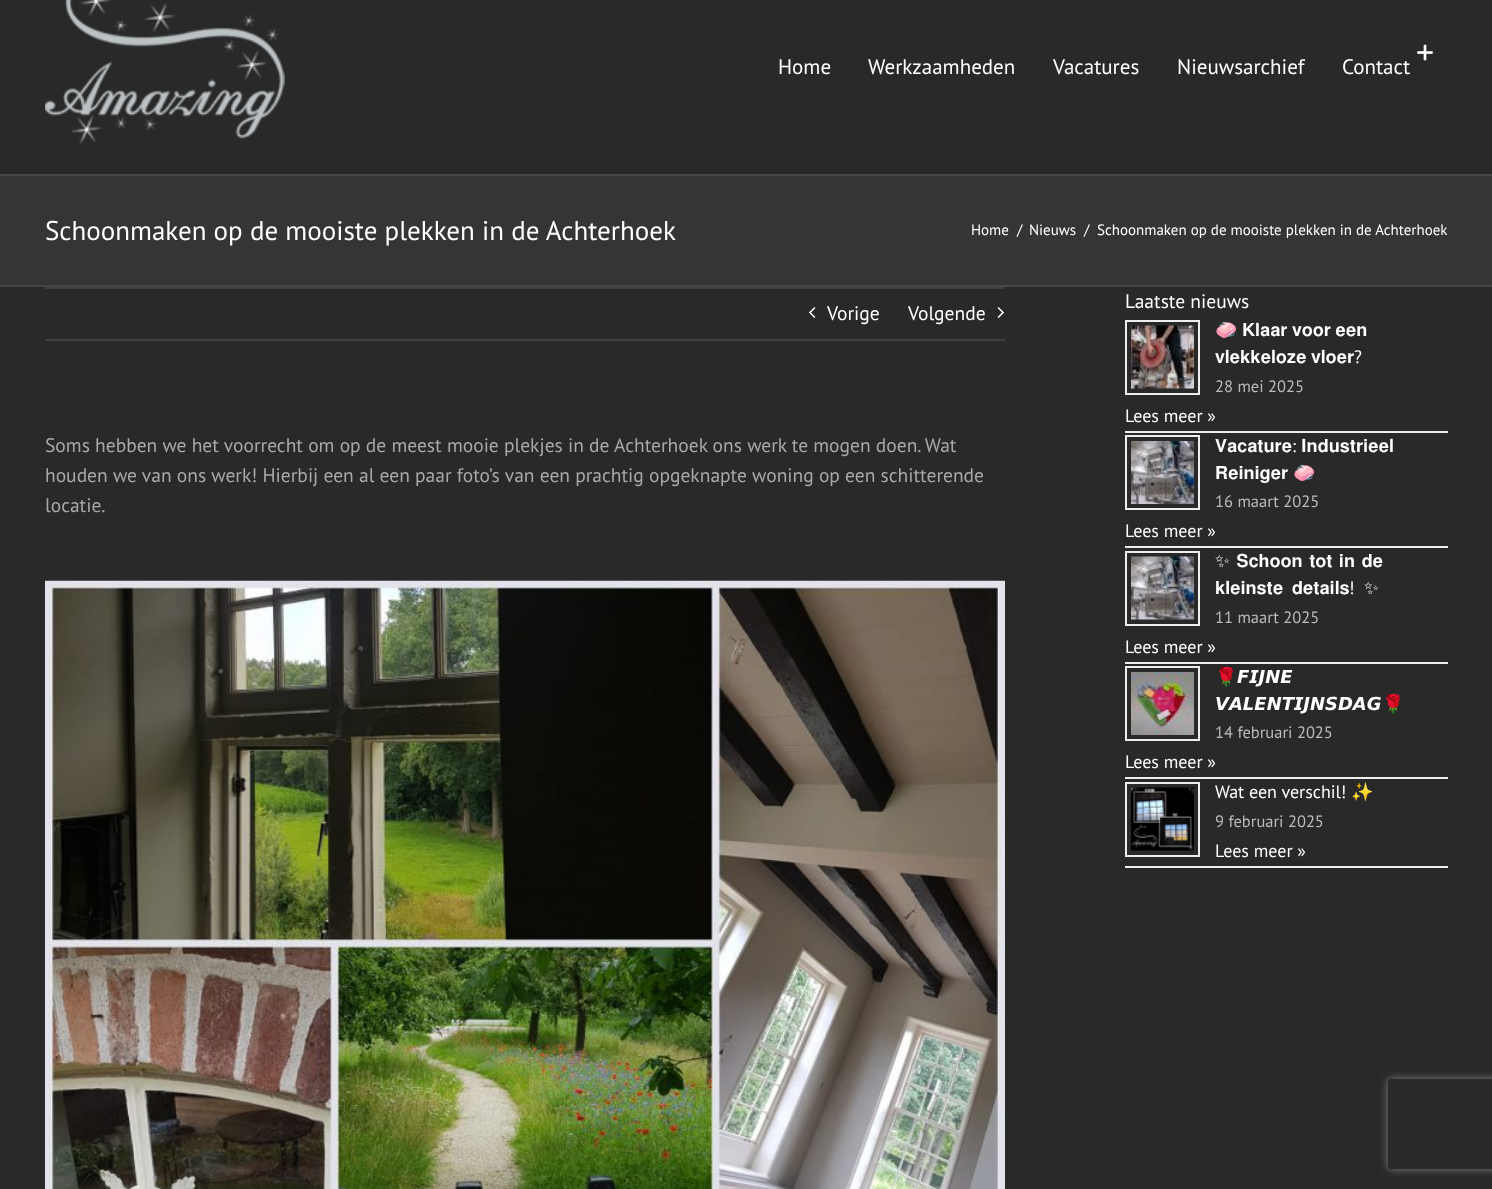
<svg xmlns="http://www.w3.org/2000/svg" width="1492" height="1189">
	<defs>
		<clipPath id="clip1"><path d="M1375 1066H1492V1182H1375ZM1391 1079H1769C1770.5 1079 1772 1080.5 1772 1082V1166C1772 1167.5 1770.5 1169 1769 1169H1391C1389.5 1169 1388 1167.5 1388 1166V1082C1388 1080.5 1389.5 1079 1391 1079Z" clip-rule="evenodd" /></clipPath>
	</defs>
	<rect width="100%" height="100%" fill="#29292A" />
	<image x="1417" y="44" width="16" height="17" href="assets/img1.png" />
	<image x="45" y="0" width="240" height="144" href="assets/img2.png" />
	<g font-family="PT Sans" font-size="21" fill="#FFFFFF">
		<text x="778" y="74">Home</text>
		<text x="868" y="74">Werkzaamheden</text>
		<text x="1053" y="74">Vacatures</text>
		<text x="1177" y="74">Nieuwsarchief</text>
		<text x="1342" y="74">Contact</text>
	</g>
	<rect x="0" y="176" width="1492" height="109" fill="#353535" />
	<rect x="0" y="174" width="1492" height="2" fill="#464646" />
	<rect x="0" y="285" width="1492" height="2" fill="#464646" />
	<text x="45" y="240" font-family="PT Sans" font-size="27" fill="#FFFFFF">Schoonmaken op de mooiste plekken in de Achterhoek</text>
	<g font-family="PT Sans" font-size="15" fill="#FFFFFF">
		<text x="971" y="235">Home</text>
		<text x="1017" y="235">/</text>
		<text x="1029" y="235">Nieuws</text>
		<text x="1084" y="235">/</text>
		<text x="1097" y="235">Schoonmaken op de mooiste plekken in de Achterhoek</text>
	</g>
	<rect x="45" y="287" width="960" height="2" fill="#3E3E3E" />
	<rect x="45" y="339" width="960" height="2" fill="#3E3E3E" />
	<image x="809" y="307" width="7" height="11" href="assets/img3.png" />
	<g font-family="PT Sans" font-size="19.5" fill="#FFFFFF">
		<text x="827" y="320">Vorige</text>
		<text x="908" y="320">Volgende</text>
	</g>
	<image x="997" y="307" width="7" height="11" href="assets/img4.png" />
	<g font-family="PT Sans" font-size="19.5" fill="#AAA9A9">
		<text x="45" y="452">Soms hebben we het voorrecht om op de meest mooie plekjes in de Achterhoek ons werk te mogen doen. Wat</text>
		<text x="45" y="482">houden we van ons werk! Hierbij een al een paar foto’s van een prachtig opgeknapte woning op een schitterende</text>
		<text x="45" y="512">locatie.</text>
	</g>
	<image x="45" y="580" width="960" height="609" href="assets/img5.png" />
	<text x="1125" y="308" font-family="PT Sans" font-size="19.5" fill="#FFFFFF">Laatste nieuws</text>
	<rect x="1125" y="431" width="323" height="2" fill="#EEEEEE" />
	<rect x="1126" y="321" width="73" height="73" fill="none" stroke="#EEEEEE" stroke-width="2" />
	<image x="1131" y="325" width="63" height="64" href="assets/img6.png" />
	<text x="1215" y="336" font-family="Noto Color Emoji" font-size="18" fill="#FFFFFF">🧼</text>
	<g font-family="FreeSans" font-size="18" fill="#FFFFFF">
		<text x="1242" y="336">𝐊𝐥𝐚𝐚𝐫 𝐯𝐨𝐨𝐫 𝐞𝐞𝐧</text>
		<text x="1215" y="363">𝐯𝐥𝐞𝐤𝐤𝐞𝐥𝐨𝐳𝐞 𝐯𝐥𝐨𝐞𝐫</text>
	</g>
	<text x="1354" y="363" font-family="PT Sans" font-size="18" fill="#FFFFFF">?</text>
	<text x="1215" y="392" font-family="PT Sans" font-size="16.5" fill="#BBBBBB">28 mei 2025</text>
	<text x="1125" y="422" font-family="PT Sans" font-size="18" fill="#FFFFFF">Lees meer »</text>
	<rect x="1125" y="546" width="323" height="2" fill="#EEEEEE" />
	<rect x="1126" y="436" width="73" height="73" fill="none" stroke="#EEEEEE" stroke-width="2" />
	<image x="1131" y="441" width="63" height="63" href="assets/img7.png" />
	<text x="1215" y="452" font-family="FreeSans" font-size="18" fill="#FFFFFF">𝐕𝐚𝐜𝐚𝐭𝐮𝐫𝐞</text>
	<text x="1292" y="452" font-family="PT Sans" font-size="18" fill="#FFFFFF">:</text>
	<g font-family="FreeSans" font-size="18" fill="#FFFFFF">
		<text x="1301" y="452">𝐈𝐧𝐝𝐮𝐬𝐭𝐫𝐢𝐞𝐞𝐥</text>
		<text x="1215" y="479">𝐑𝐞𝐢𝐧𝐢𝐠𝐞𝐫</text>
	</g>
	<text x="1293" y="479" font-family="Noto Color Emoji" font-size="18" fill="#FFFFFF">🧼</text>
	<text x="1215" y="507" font-family="PT Sans" font-size="16.5" fill="#BBBBBB">16 maart 2025</text>
	<text x="1125" y="537" font-family="PT Sans" font-size="18" fill="#FFFFFF">Lees meer »</text>
	<rect x="1125" y="662" width="323" height="2" fill="#EEEEEE" />
	<rect x="1126" y="552" width="73" height="73" fill="none" stroke="#EEEEEE" stroke-width="2" />
	<image x="1131" y="556" width="63" height="64" href="assets/img8.png" />
	<g font-family="FreeSans" font-size="18" fill="#FFFFFF">
		<text x="1215" y="567" word-spacing="2">✨ 𝐒𝐜𝐡𝐨𝐨𝐧 𝐭𝐨𝐭 𝐢𝐧 𝐝𝐞</text>
		<text x="1215" y="594" word-spacing="4">𝐤𝐥𝐞𝐢𝐧𝐬𝐭𝐞 𝐝𝐞𝐭𝐚𝐢𝐥𝐬</text>
	</g>
	<text x="1349" y="594" font-family="PT Sans" font-size="18" fill="#FFFFFF">!</text>
	<text x="1364" y="594" font-family="FreeSans" font-size="18" fill="#FFFFFF">✨</text>
	<text x="1215" y="623" font-family="PT Sans" font-size="16.5" fill="#BBBBBB">11 maart 2025</text>
	<text x="1125" y="653" font-family="PT Sans" font-size="18" fill="#FFFFFF">Lees meer »</text>
	<rect x="1125" y="777" width="323" height="2" fill="#EEEEEE" />
	<rect x="1126" y="667" width="73" height="73" fill="none" stroke="#EEEEEE" stroke-width="2" />
	<image x="1131" y="672" width="63" height="63" href="assets/img9.png" />
	<text x="1215" y="683" font-family="Noto Color Emoji" font-size="18" fill="#FFFFFF">🌹</text>
	<g font-family="DejaVu Sans" font-size="18" font-weight="700" font-style="italic" fill="#FFFFFF">
		<text x="1237" y="683">𝙁𝙄𝙅𝙉𝙀</text>
		<text x="1215" y="710">𝙑𝘼𝙇𝙀𝙉𝙏𝙄𝙅𝙉𝙎𝘿𝘼𝙂</text>
	</g>
	<text x="1382" y="710" font-family="Noto Color Emoji" font-size="18" fill="#FFFFFF">🌹</text>
	<text x="1215" y="738" font-family="PT Sans" font-size="16.5" fill="#BBBBBB">14 februari 2025</text>
	<text x="1125" y="768" font-family="PT Sans" font-size="18" fill="#FFFFFF">Lees meer »</text>
	<rect x="1125" y="866" width="323" height="2" fill="#EEEEEE" />
	<rect x="1126" y="783" width="73" height="73" fill="none" stroke="#EEEEEE" stroke-width="2" />
	<image x="1131" y="787" width="63" height="64" href="assets/img10.png" />
	<text x="1215" y="798" font-family="PT Sans" font-size="18" fill="#FFFFFF">Wat een verschil!</text>
	<text x="1351" y="798" font-family="Noto Color Emoji" font-size="18" fill="#FFFFFF">✨</text>
	<text x="1215" y="827" font-family="PT Sans" font-size="16.5" fill="#BBBBBB">9 februari 2025</text>
	<text x="1215" y="857" font-family="PT Sans" font-size="18" fill="#FFFFFF">Lees meer »</text>
	<g clip-path="url(#clip1)">
		<rect x="1388" y="1079" width="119" height="90" rx="3" fill="#808080" filter="blur(4px)" />
	</g>
</svg>
